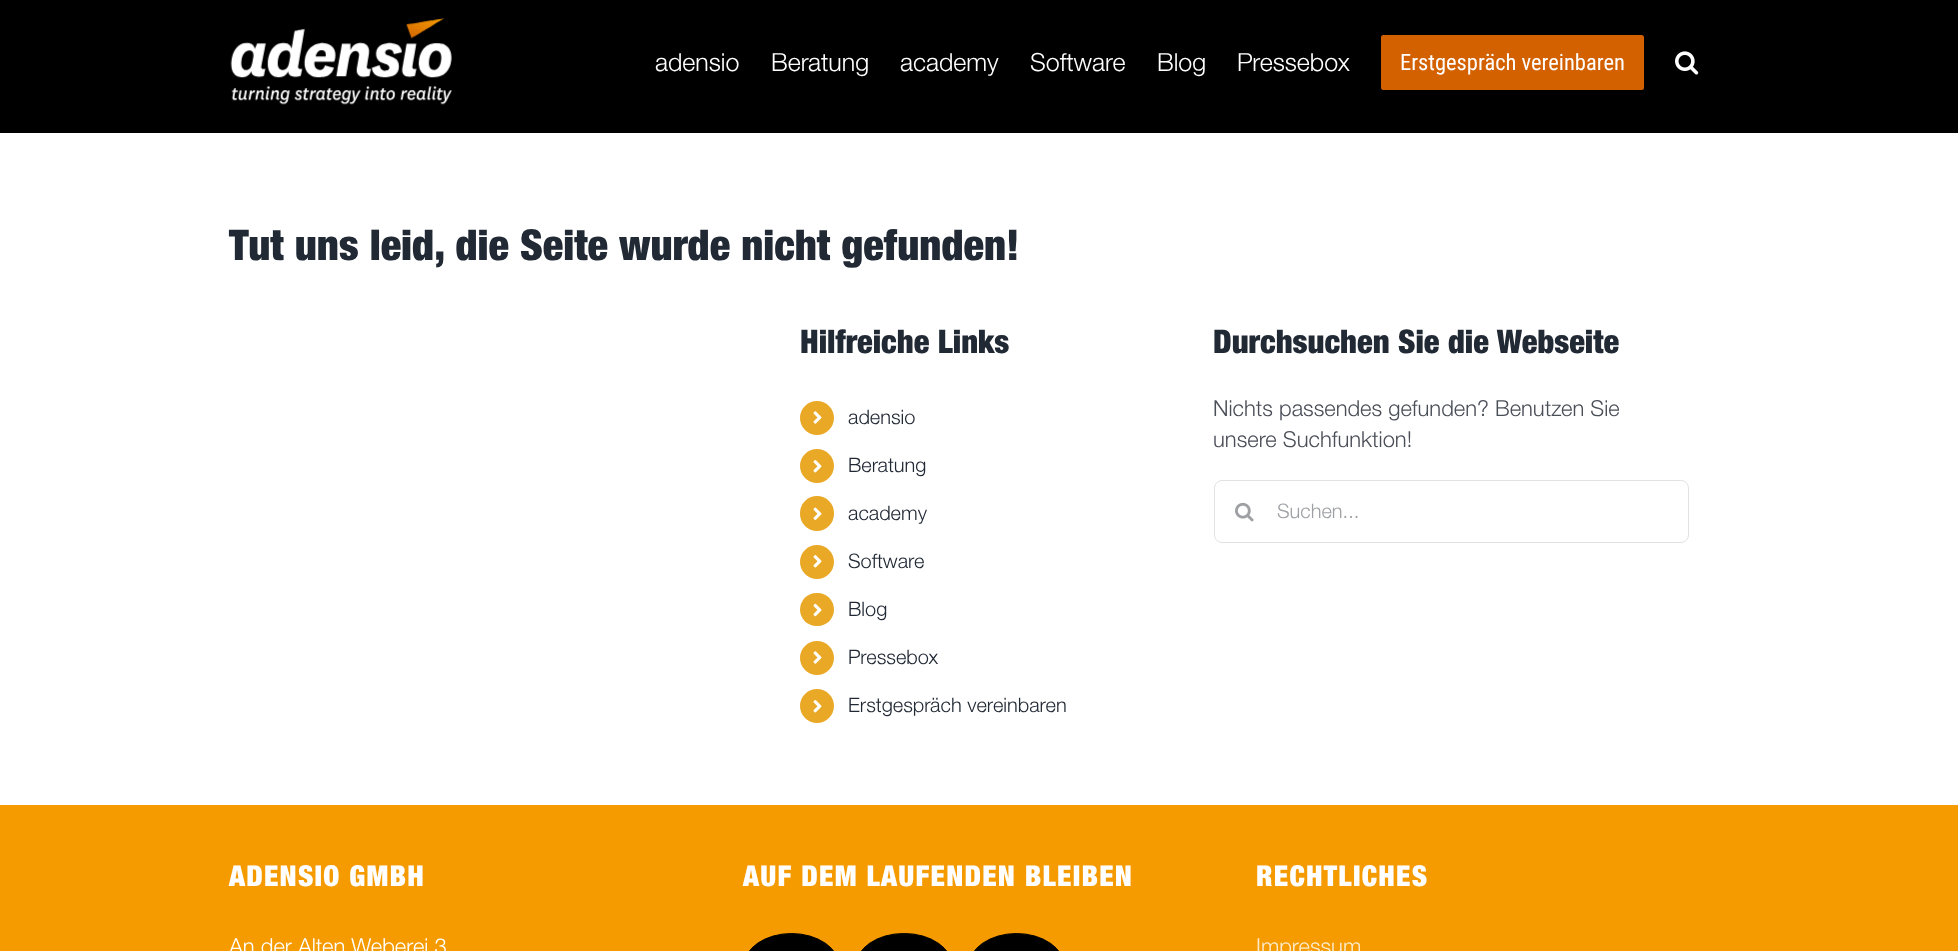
<svg xmlns="http://www.w3.org/2000/svg" width="1958" height="951">
	<rect width="100%" height="100%" fill="#FFFFFF" />
	<rect x="0" y="0" width="1958" height="133" fill="#000000" />
	<image x="230" y="18" width="222" height="87" href="assets/img1.png" />
	<g font-family="Helvetica Neue" font-size="25" font-weight="300" fill="#FFFFFF">
		<text x="655" y="71">adensio</text>
		<text x="771" y="71">Beratung</text>
		<text x="900" y="71">academy</text>
		<text x="1030" y="71">Software</text>
		<text x="1157" y="71">Blog</text>
		<text x="1237" y="71">Pressebox</text>
	</g>
	<rect x="1381" y="35" width="263" height="55" rx="2.5" fill="#D36100" />
	<text x="1400" y="70" font-family="Roboto Condensed" font-size="22.5" fill="#FFFFFF">Erstgespräch vereinbaren</text>
	<image x="1675" y="51" width="24" height="24" href="assets/img2.png" />
	<text x="229" y="260" font-family="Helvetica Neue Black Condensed" font-size="42.5" font-weight="900" fill="#212934">Tut uns leid, die Seite wurde nicht gefunden!</text>
	<text x="800" y="353" font-family="Helvetica Neue Black Condensed" font-size="32.5" font-weight="900" fill="#212934">Hilfreiche Links</text>
	<circle cx="817" cy="418" r="17" fill="#E9A825" />
	<image x="813" y="411" width="9" height="13" href="assets/img3.png" />
	<text x="848" y="424" font-family="Helvetica Neue" font-size="20" font-weight="300" fill="#212934">adensio</text>
	<circle cx="817" cy="466" r="17" fill="#E9A825" />
	<image x="813" y="460" width="9" height="13" href="assets/img4.png" />
	<text x="848" y="472" font-family="Helvetica Neue" font-size="20" font-weight="300" fill="#212934">Beratung</text>
	<rect x="800" y="496" width="34" height="35" rx="17" fill="#E9A825" />
	<image x="813" y="507" width="9" height="13" href="assets/img5.png" />
	<text x="848" y="520" font-family="Helvetica Neue" font-size="20" font-weight="300" fill="#212934">academy</text>
	<circle cx="817" cy="562" r="17" fill="#E9A825" />
	<image x="813" y="555" width="9" height="13" href="assets/img4.png" />
	<text x="848" y="568" font-family="Helvetica Neue" font-size="20" font-weight="300" fill="#212934">Software</text>
	<rect x="800" y="593" width="34" height="33" rx="16.5" fill="#E9A825" />
	<image x="813" y="603" width="9" height="14" href="assets/img6.png" />
	<text x="848" y="616" font-family="Helvetica Neue" font-size="20" font-weight="300" fill="#212934">Blog</text>
	<circle cx="817" cy="658" r="17" fill="#E9A825" />
	<image x="813" y="651" width="9" height="13" href="assets/img3.png" />
	<text x="848" y="664" font-family="Helvetica Neue" font-size="20" font-weight="300" fill="#212934">Pressebox</text>
	<circle cx="817" cy="706" r="17" fill="#E9A825" />
	<image x="813" y="700" width="9" height="13" href="assets/img4.png" />
	<text x="848" y="712" font-family="Helvetica Neue" font-size="20" font-weight="300" fill="#212934">Erstgespräch vereinbaren</text>
	<text x="1213" y="353" font-family="Helvetica Neue Black Condensed" font-size="32.5" font-weight="900" fill="#212934">Durchsuchen Sie die Webseite</text>
	<g font-family="Helvetica Neue" font-size="22" font-weight="300" fill="#4A4E57">
		<text x="1213" y="416">Nichts passendes gefunden? Benutzen Sie</text>
		<text x="1213" y="447">unsere Suchfunktion!</text>
	</g>
	<rect x="1214.5" y="480.5" width="474" height="62" rx="7.5" fill="none" stroke="#E2E2E2" />
	<image x="1235" y="502" width="19" height="20" href="assets/img7.png" />
	<text x="1277" y="518" font-family="Helvetica Neue" font-size="20" font-weight="300" fill="#9EA0A4">Suchen...</text>
	<rect x="0" y="805" width="1958" height="146" fill="#F59B00" />
	<text x="229" y="886" font-family="Helvetica Neue Black Condensed" font-size="28.75" font-weight="900" letter-spacing="1.25" fill="#FFFFFF">ADENSIO GMBH</text>
	<text x="229" y="954" font-family="Helvetica Neue" font-size="22" font-weight="300" fill="#FFFFFF">An der Alten Weberei 3</text>
	<text x="743" y="886" font-family="Helvetica Neue Black Condensed" font-size="28.75" font-weight="900" letter-spacing="1.25" fill="#FFFFFF">AUF DEM LAUFENDEN BLEIBEN</text>
	<rect x="743.5" y="933.5" width="96" height="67" rx="48" fill="#000000" stroke="#000000" />
	<rect x="855.5" y="933.5" width="97" height="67" rx="48" fill="#000000" stroke="#000000" />
	<rect x="968.5" y="933.5" width="96" height="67" rx="48" fill="#000000" stroke="#000000" />
	<text x="1256" y="886" font-family="Helvetica Neue Black Condensed" font-size="28.75" font-weight="900" letter-spacing="1.25" fill="#FFFFFF">RECHTLICHES</text>
	<text x="1256" y="954" font-family="Helvetica Neue" font-size="22" font-weight="300" fill="#FDEBCC">Impressum</text>
</svg>
